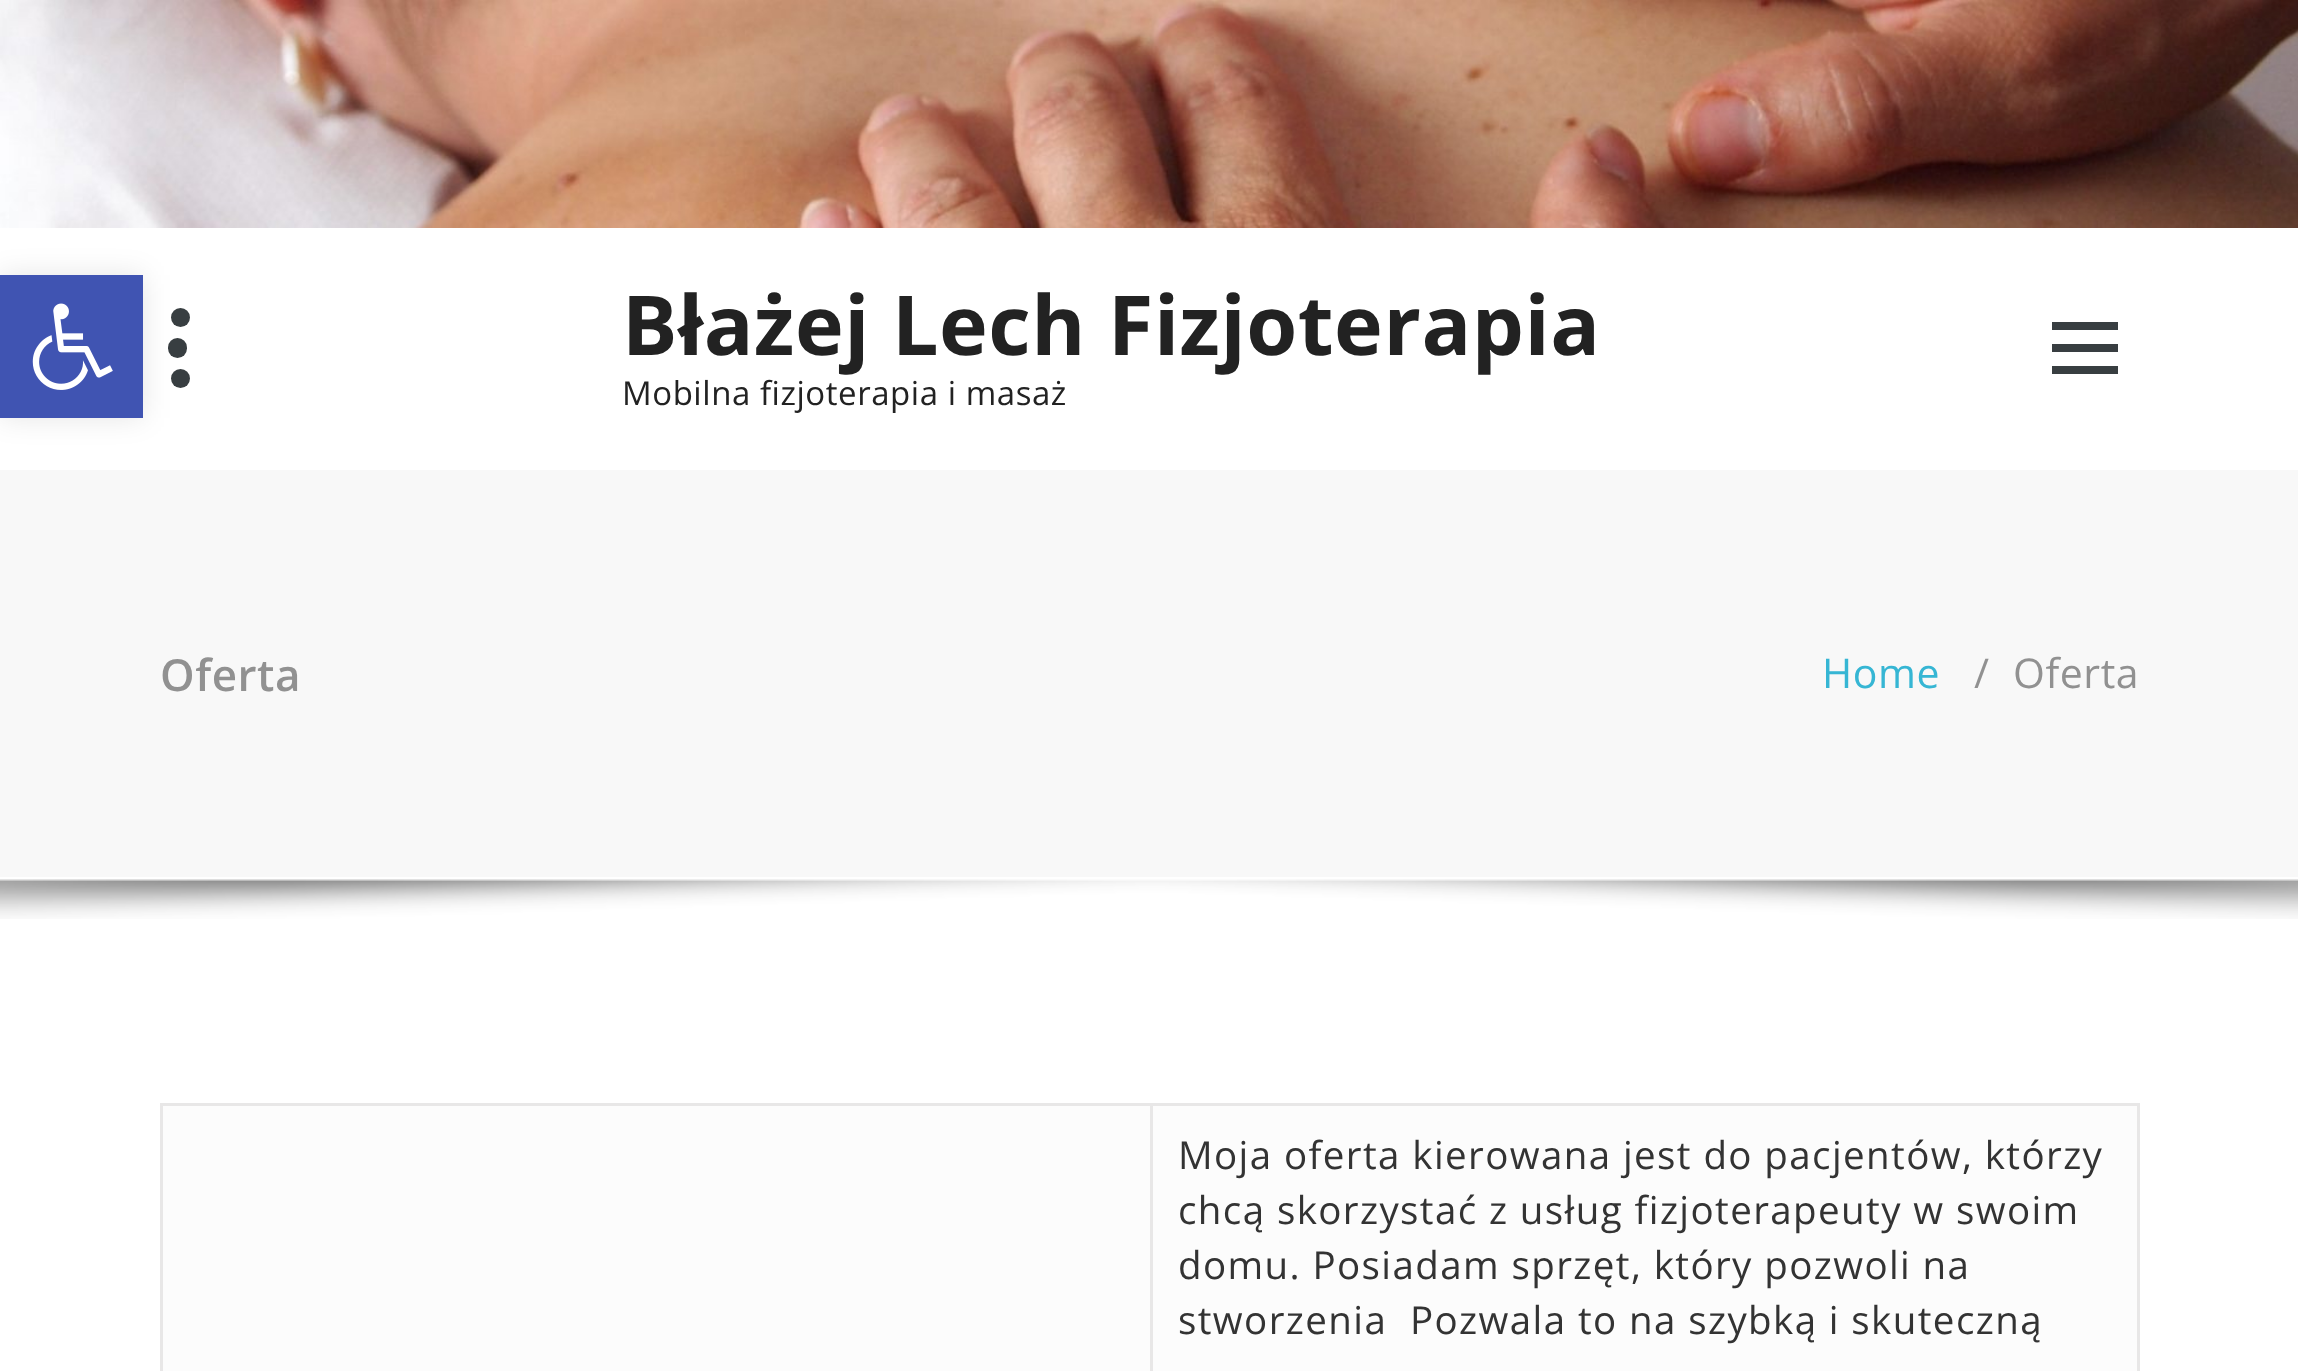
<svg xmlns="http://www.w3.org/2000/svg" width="2298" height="1371">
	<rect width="100%" height="100%" fill="#FFFFFF" />
	<rect x="168" y="338" width="19" height="20" rx="9.5" fill="#383E41" />
	<circle cx="180.5" cy="317.5" r="9.5" fill="#383E41" />
	<circle cx="180.5" cy="378.5" r="9.5" fill="#383E41" />
	<rect x="0" y="275" width="143" height="143" fill="#000000" fill-opacity="0.1" filter="blur(14px)" />
	<rect x="0" y="275" width="143" height="143" fill="#4054B2" />
	<image x="32" y="303" width="81" height="87" href="assets/img1.png" />
	<image x="0" y="0" width="2298" height="228" href="assets/img2.png" />
	<text x="622" y="355" font-family="Open Sans" font-size="82.5" font-weight="700" letter-spacing="0.55" fill="#222222">Błażej Lech Fizjoterapia</text>
	<text x="622" y="405" font-family="Open Sans" font-size="33" letter-spacing="0.55" fill="#222222">Mobilna fizjoterapia i masaż</text>
	<rect x="2052" y="322" width="66" height="8" fill="#383E41" />
	<rect x="2052" y="344" width="66" height="8" fill="#383E41" />
	<rect x="2052" y="366" width="66" height="8" fill="#383E41" />
	<rect x="0" y="470" width="2298" height="407" fill="#F8F8F8" />
	<text x="160" y="691" font-family="Open Sans" font-size="44" font-weight="600" letter-spacing="0.55" fill="#919191">Oferta</text>
	<text x="1822" y="688" font-family="Open Sans" font-size="41" letter-spacing="0.55" fill="#36B6D4">Home</text>
	<g font-family="Open Sans" font-size="41" letter-spacing="0.55" fill="#919191">
		<text x="1974" y="688">/</text>
		<text x="2013" y="688">Oferta</text>
	</g>
	<image x="0" y="879" width="2298" height="40" href="assets/img3.png" />
	<rect x="163" y="1106" width="1974" height="265" fill="#FCFCFC" />
	<rect x="1150" y="1103" width="990" height="3" fill="#E8E7E7" />
	<rect x="1150" y="1103" width="3" height="268" fill="#E8E7E7" />
	<rect x="160" y="1103" width="992" height="3" fill="#E8E7E7" />
	<rect x="160" y="1103" width="3" height="268" fill="#E8E7E7" />
	<rect x="2137" y="1103" width="3" height="268" fill="#E8E7E7" />
	<g font-family="Open Sans" font-size="38.5" letter-spacing="1.4" fill="#333333">
		<text x="1178" y="1169">Moja oferta kierowana jest do pacjentów, którzy</text>
		<text x="1178" y="1224">chcą skorzystać z usług fizjoterapeuty w swoim</text>
		<text x="1178" y="1279">domu. Posiadam sprzęt, który pozwoli na</text>
		<text x="1178" y="1334" xml:space="preserve">stworzenia  Pozwala to na szybką i skuteczną</text>
	</g>
</svg>
